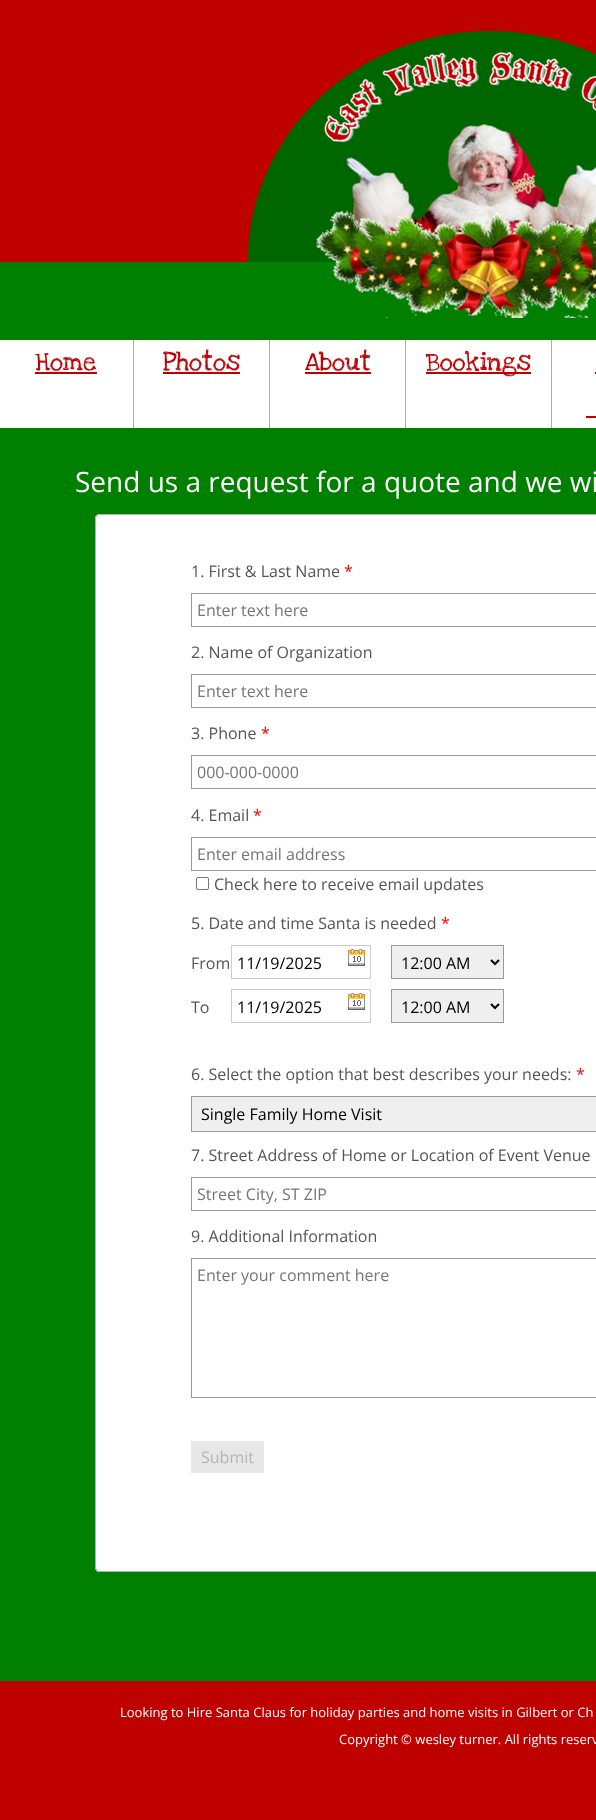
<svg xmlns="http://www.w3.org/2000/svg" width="596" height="1820">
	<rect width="100%" height="100%" fill="#BF0000" />
	<rect x="0" y="262" width="596" height="1419" fill="#007F00" />
	<image x="248" y="31" width="348" height="231" href="assets/img1.png" />
	<image x="316" y="210" width="280" height="108" href="assets/img2.png" />
	<rect x="0" y="340" width="133" height="88" fill="#FFFFFF" />
	<rect x="133" y="340" width="1" height="88" fill="#AEAEAE" />
	<text x="35" y="370" font-family="Love Ya Like A Sister" font-size="26" fill="#BF0000">Home</text>
	<rect x="35" y="372" width="62" height="2" fill="#BF0000" />
	<rect x="134" y="340" width="135" height="88" fill="#FFFFFF" />
	<rect x="269" y="340" width="1" height="88" fill="#AEAEAE" />
	<text x="163" y="370" font-family="Love Ya Like A Sister" font-size="26" fill="#BF0000">Photos</text>
	<rect x="163" y="372" width="77" height="2" fill="#BF0000" />
	<rect x="270" y="340" width="135" height="88" fill="#FFFFFF" />
	<rect x="405" y="340" width="1" height="88" fill="#AEAEAE" />
	<text x="305" y="370" font-family="Love Ya Like A Sister" font-size="26" fill="#BF0000">About</text>
	<rect x="305" y="372" width="66" height="2" fill="#BF0000" />
	<rect x="406" y="340" width="145" height="88" fill="#FFFFFF" />
	<rect x="551" y="340" width="1" height="88" fill="#AEAEAE" />
	<rect x="426" y="372" width="105" height="2" fill="#BF0000" />
	<text x="426" y="370" font-family="Love Ya Like A Sister" font-size="26" fill="#BF0000">Bookings</text>
	<rect x="552" y="340" width="44" height="88" fill="#FFFFFF" />
	<rect x="595" y="372" width="1" height="2" fill="#BF0000" />
	<rect x="586" y="416" width="10" height="2" fill="#BF0000" />
	<text x="75" y="492" font-family="Open Sans" font-size="28" fill="#FFFFFF">Send us a request for a quote and we wi</text>
	<path d="M100 514H596V1572H100C97 1572 95 1570 95 1567V519C95 516 97 514 100 514Z" fill="#FFFFFF" />
	<rect x="95.5" y="514.5" width="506" height="1057" rx="4.5" fill="none" stroke="#A9B4BB" />
	<text x="191" y="577" font-family="Open Sans" font-size="16" fill="#555555">1. First &amp; Last Name</text>
	<text x="344" y="577" font-family="Open Sans" font-size="16" fill="#FF0000">*</text>
	<rect x="191.5" y="593.5" width="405" height="33" fill="none" stroke="#999999" />
	<text x="197" y="616" font-family="Open Sans" font-size="16" fill="#757575">Enter text here</text>
	<text x="191" y="658" font-family="Open Sans" font-size="16" fill="#555555">2. Name of Organization</text>
	<rect x="191.5" y="674.5" width="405" height="33" fill="none" stroke="#999999" />
	<text x="197" y="697" font-family="Open Sans" font-size="16" fill="#757575">Enter text here</text>
	<text x="191" y="739" font-family="Open Sans" font-size="16" fill="#555555">3. Phone</text>
	<text x="261" y="739" font-family="Open Sans" font-size="16" fill="#FF0000">*</text>
	<rect x="191.5" y="755.5" width="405" height="33" fill="none" stroke="#999999" />
	<text x="197" y="778" font-family="Open Sans" font-size="16" fill="#757575">000-000-0000</text>
	<text x="191" y="821" font-family="Open Sans" font-size="16" fill="#555555">4. Email</text>
	<text x="253" y="821" font-family="Open Sans" font-size="16" fill="#FF0000">*</text>
	<rect x="191.5" y="837.5" width="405" height="33" fill="none" stroke="#999999" />
	<text x="197" y="860" font-family="Open Sans" font-size="16" fill="#757575">Enter email address</text>
	<rect x="196.5" y="877.5" width="12" height="12" rx="1.5" fill="none" stroke="#767676" />
	<g font-family="Open Sans" font-size="16" fill="#555555">
		<text x="214" y="890">Check here to receive email updates</text>
		<text x="191" y="929">5. Date and time Santa is needed</text>
	</g>
	<text x="441" y="929" font-family="Open Sans" font-size="16" fill="#FF0000">*</text>
	<text x="191" y="969" font-family="Open Sans" font-size="16" fill="#555555">From</text>
	<rect x="231.5" y="945.5" width="139" height="33" fill="none" stroke="#CCCCCC" />
	<text x="237" y="969" font-family="Open Sans" font-size="16" fill="#000000">11/19/2025</text>
	<image x="348" y="949" width="17" height="17" href="assets/img3.png" />
	<rect x="391.5" y="945.5" width="112" height="33" fill="#EFEFEF" stroke="#999999" />
	<path d="M491 960L495 964L499 960" fill="none" stroke="#000000" stroke-width="2" />
	<text x="401" y="969" font-family="Open Sans" font-size="16" fill="#000000">12:00 AM</text>
	<text x="191" y="1013" font-family="Open Sans" font-size="16" fill="#555555">To</text>
	<rect x="231.5" y="989.5" width="139" height="33" fill="none" stroke="#CCCCCC" />
	<text x="237" y="1013" font-family="Open Sans" font-size="16" fill="#000000">11/19/2025</text>
	<image x="348" y="993" width="17" height="17" href="assets/img3.png" />
	<rect x="391.5" y="989.5" width="112" height="33" fill="#EFEFEF" stroke="#999999" />
	<path d="M491 1004L495 1008L499 1004" fill="none" stroke="#000000" stroke-width="2" />
	<text x="401" y="1013" font-family="Open Sans" font-size="16" fill="#000000">12:00 AM</text>
	<text x="191" y="1080" font-family="Open Sans" font-size="16" fill="#555555">6. Select the option that best describes your needs:</text>
	<text x="576" y="1080" font-family="Open Sans" font-size="16" fill="#FF0000">*</text>
	<rect x="191.5" y="1096.5" width="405" height="35" fill="#EFEFEF" stroke="#999999" />
	<text x="201" y="1120" font-family="Open Sans" font-size="16" fill="#000000">Single Family Home Visit</text>
	<text x="191" y="1161" font-family="Open Sans" font-size="16" fill="#555555">7. Street Address of Home or Location of Event Venue</text>
	<rect x="191.5" y="1177.5" width="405" height="33" fill="none" stroke="#999999" />
	<text x="197" y="1200" font-family="Open Sans" font-size="16" fill="#757575">Street City, ST ZIP</text>
	<text x="191" y="1242" font-family="Open Sans" font-size="16" fill="#555555">9. Additional Information</text>
	<rect x="191.5" y="1258.5" width="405" height="139" fill="none" stroke="#999999" />
	<text x="197" y="1281" font-family="Open Sans" font-size="16" fill="#757575">Enter your comment here</text>
	<rect x="191" y="1441" width="73" height="32" fill="#E7E7E7" />
	<text x="201" y="1463" font-family="Open Sans" font-size="16" fill="#B4B4B4">Submit</text>
	<g font-family="Open Sans" font-size="13" fill="#FFFFFF">
		<text x="120" y="1717">Looking to Hire Santa Claus for holiday parties and home visits in Gilbert or Ch</text>
		<text x="339" y="1744">Copyright © wesley turner. All rights reserv</text>
	</g>
</svg>
